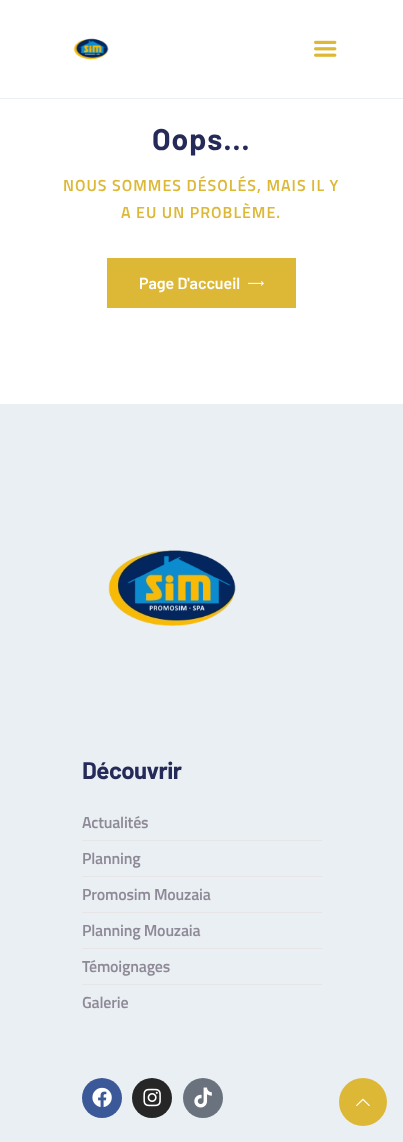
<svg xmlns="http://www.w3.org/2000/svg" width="403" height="1142">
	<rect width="100%" height="100%" fill="#FFFFFF" />
	<rect x="0" y="98" width="403" height="1" fill="#EAEFF3" />
	<image x="73" y="38" width="36" height="22" href="assets/img1.png" />
	<image x="314" y="40" width="23" height="17" href="assets/img2.png" />
	<text x="152" y="150" font-family="Barlow" font-size="30" font-weight="700" letter-spacing="1" fill="#262A59">Oops...</text>
	<g font-family="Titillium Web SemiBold" font-size="16" font-weight="600" letter-spacing="1" fill="#DDB837">
		<text x="63" y="191">NOUS SOMMES DÉSOLÉS, MAIS IL Y</text>
		<text x="121" y="218">A EU UN PROBLÈME.</text>
	</g>
	<rect x="107" y="258" width="189" height="50" fill="#DDB837" />
	<text x="139" y="289" font-family="Barlow" font-size="16" font-weight="600" fill="#FFFFFF">Page D'accueil</text>
	<image x="248" y="281" width="16" height="5" href="assets/img3.png" />
	<rect x="0" y="404" width="403" height="738" fill="#EAEFF3" />
	<image x="108" y="550" width="128" height="76" href="assets/img4.png" />
	<text x="82" y="779" font-family="Barlow" font-size="24" font-weight="700" letter-spacing="-0.5" fill="#262A59">Découvrir</text>
	<text x="82" y="828" font-family="Titillium Web SemiBold" font-size="16" font-weight="600" letter-spacing="-0.2" fill="#8E8997">Actualités</text>
	<rect x="82" y="840" width="240" height="1" fill="#E7E5E6" />
	<text x="82" y="864" font-family="Titillium Web SemiBold" font-size="16" font-weight="600" letter-spacing="-0.2" fill="#8E8997">Planning</text>
	<rect x="82" y="876" width="240" height="1" fill="#E7E5E6" />
	<text x="82" y="900" font-family="Titillium Web SemiBold" font-size="16" font-weight="600" letter-spacing="-0.2" fill="#8E8997">Promosim Mouzaia</text>
	<rect x="82" y="912" width="240" height="1" fill="#E7E5E6" />
	<text x="82" y="936" font-family="Titillium Web SemiBold" font-size="16" font-weight="600" letter-spacing="-0.2" fill="#8E8997">Planning Mouzaia</text>
	<rect x="82" y="948" width="240" height="1" fill="#E7E5E6" />
	<text x="82" y="972" font-family="Titillium Web SemiBold" font-size="16" font-weight="600" letter-spacing="-0.2" fill="#8E8997">Témoignages</text>
	<rect x="82" y="984" width="240" height="1" fill="#E7E5E6" />
	<text x="82" y="1008" font-family="Titillium Web SemiBold" font-size="16" font-weight="600" letter-spacing="-0.2" fill="#8E8997">Galerie</text>
	<circle cx="102" cy="1098" r="20" fill="#3B5998" />
	<image x="92" y="1087" width="20" height="20" href="assets/img5.png" />
	<circle cx="152" cy="1098" r="20" fill="#262626" />
	<image x="143" y="1088" width="18" height="19" href="assets/img6.png" />
	<circle cx="203" cy="1098" r="20" fill="#69727D" />
	<image x="194" y="1087" width="18" height="21" href="assets/img7.png" />
	<circle cx="363" cy="1102" r="24" fill="#DDB837" />
	<image x="356" y="1098" width="14" height="8" href="assets/img8.png" />
</svg>
